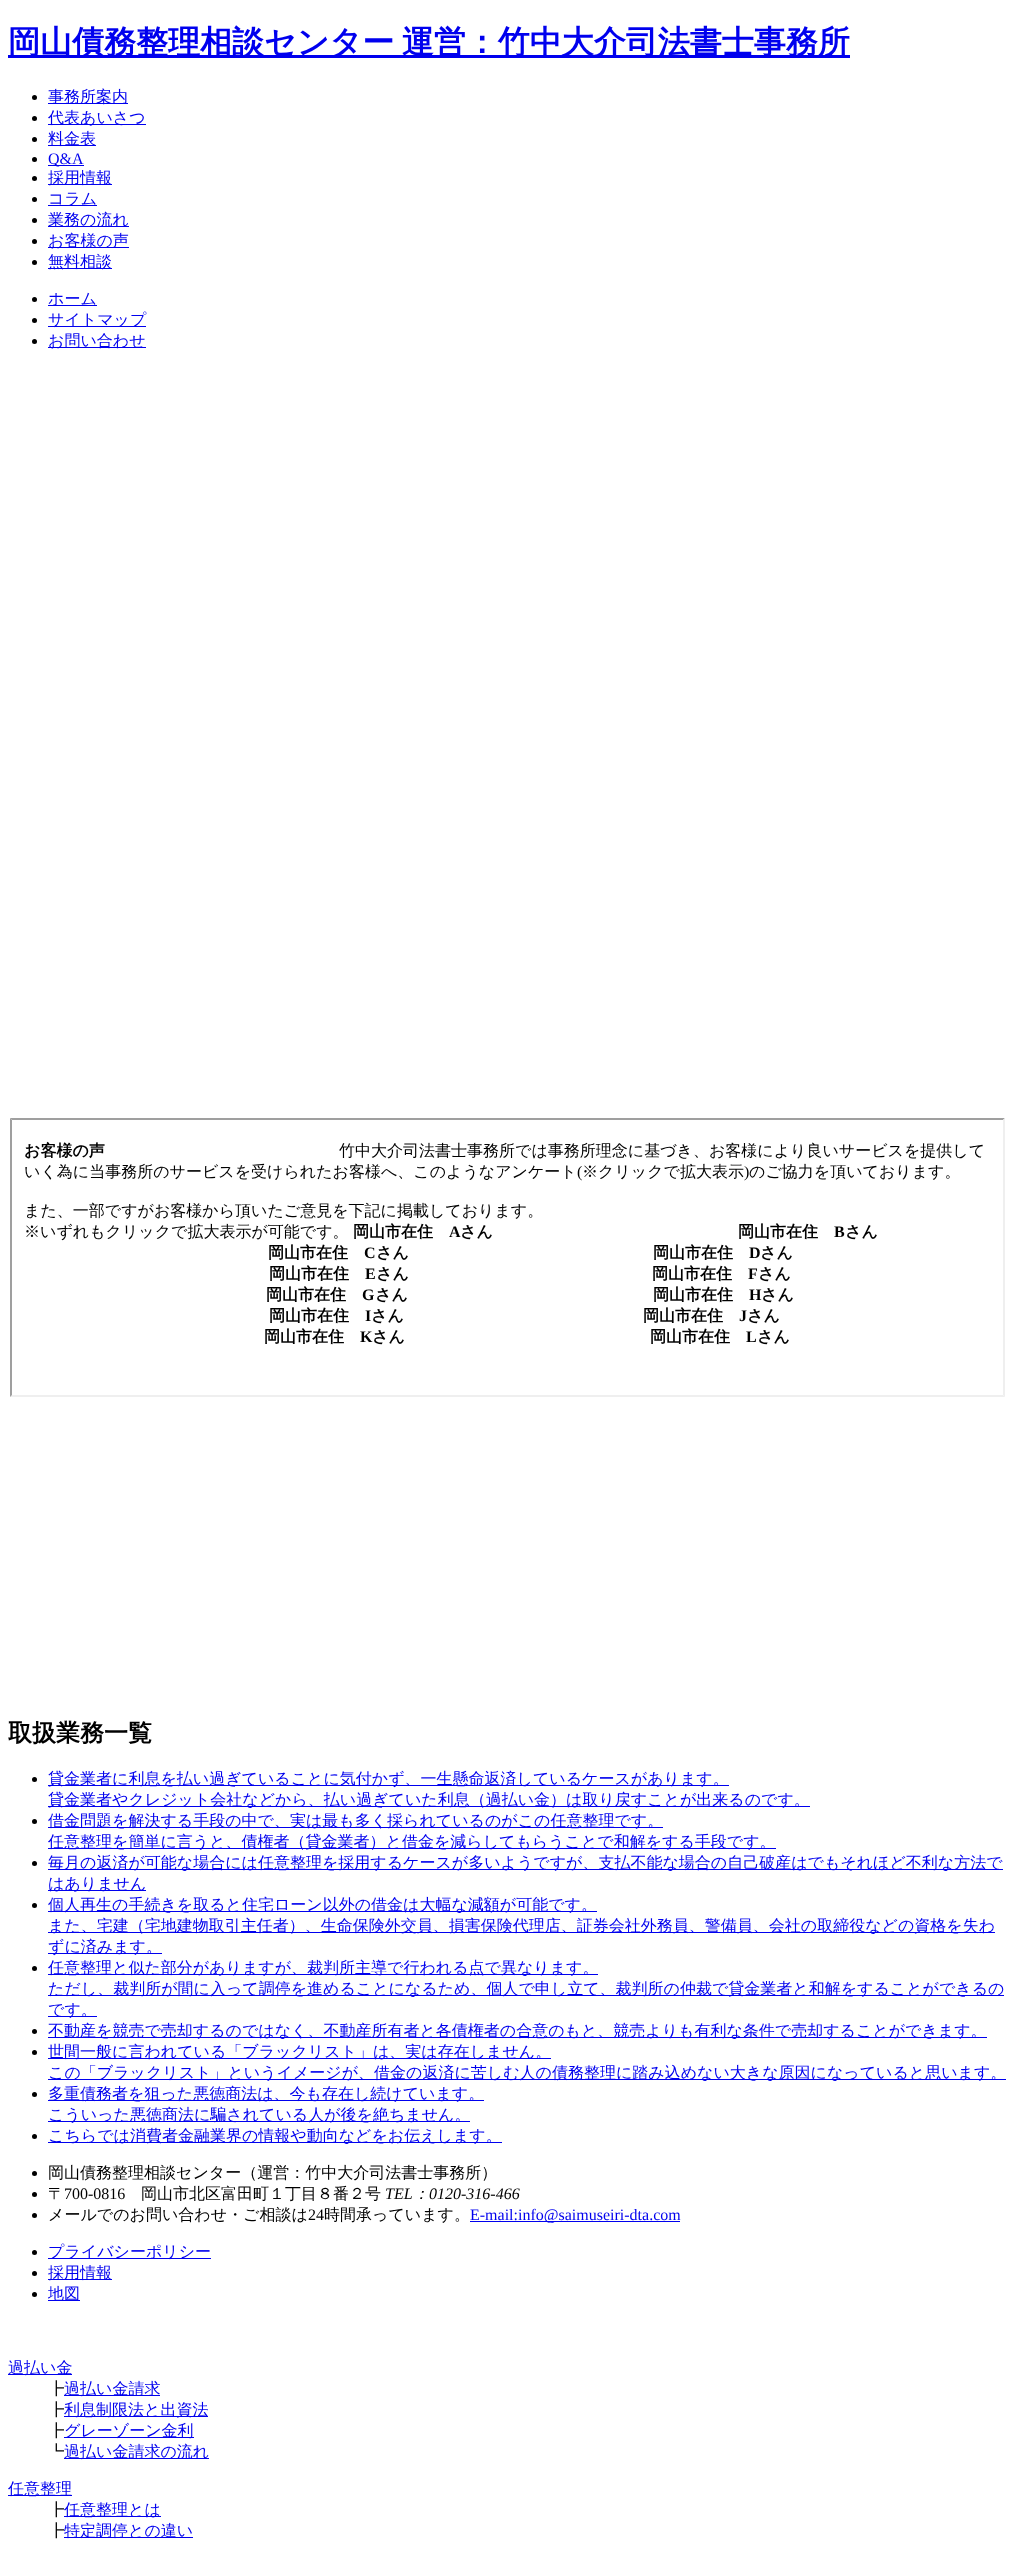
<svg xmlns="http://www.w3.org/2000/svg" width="1015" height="2551">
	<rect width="100%" height="100%" fill="#FFFFFF" />
	<rect x="8" y="55" width="842" height="3" fill="#0000EE" />
	<text x="8" y="53" word-spacing="-2" font-family="WenQuanYi Zen Hei" font-size="32" font-weight="700" fill="#0000EE">岡山債務整理相談センター 運営：竹中大介司法書士事務所</text>
	<circle cx="34.5" cy="97.5" r="2.5" fill="#000000" />
	<rect x="48" y="103" width="80" height="1" fill="#0000EE" />
	<text x="48" y="102" font-family="WenQuanYi Zen Hei" font-size="16" font-weight="500" fill="#0000EE">事務所案内</text>
	<circle cx="34.5" cy="118.5" r="2.5" fill="#000000" />
	<rect x="48" y="124" width="98" height="1" fill="#0000EE" />
	<text x="48" y="123" font-family="WenQuanYi Zen Hei" font-size="16" font-weight="500" fill="#0000EE">代表あいさつ</text>
	<circle cx="34.5" cy="139.5" r="2.5" fill="#000000" />
	<rect x="48" y="145" width="48" height="1" fill="#0000EE" />
	<text x="48" y="144" font-family="WenQuanYi Zen Hei" font-size="16" font-weight="500" fill="#0000EE">料金表</text>
	<circle cx="34.5" cy="159.5" r="2.5" fill="#000000" />
	<rect x="48" y="165" width="36" height="1" fill="#0000EE" />
	<text x="48" y="164" font-family="Liberation Serif" font-size="16" fill="#0000EE">Q&amp;A</text>
	<circle cx="34.5" cy="178.5" r="2.5" fill="#000000" />
	<rect x="48" y="184" width="64" height="1" fill="#0000EE" />
	<text x="48" y="183" font-family="WenQuanYi Zen Hei" font-size="16" font-weight="500" fill="#0000EE">採用情報</text>
	<circle cx="34.5" cy="199.5" r="2.5" fill="#000000" />
	<rect x="48" y="205" width="49" height="1" fill="#0000EE" />
	<text x="48" y="204" font-family="WenQuanYi Zen Hei" font-size="16" font-weight="500" fill="#0000EE">コラム</text>
	<circle cx="34.5" cy="220.5" r="2.5" fill="#000000" />
	<rect x="48" y="226" width="81" height="1" fill="#0000EE" />
	<text x="48" y="225" font-family="WenQuanYi Zen Hei" font-size="16" font-weight="500" fill="#0000EE">業務の流れ</text>
	<circle cx="34.5" cy="241.5" r="2.5" fill="#000000" />
	<rect x="48" y="247" width="81" height="1" fill="#0000EE" />
	<text x="48" y="246" font-family="WenQuanYi Zen Hei" font-size="16" font-weight="500" fill="#0000EE">お客様の声</text>
	<circle cx="34.5" cy="262.5" r="2.5" fill="#000000" />
	<rect x="48" y="268" width="64" height="1" fill="#0000EE" />
	<text x="48" y="267" font-family="WenQuanYi Zen Hei" font-size="16" font-weight="500" fill="#0000EE">無料相談</text>
	<circle cx="34.5" cy="299.5" r="2.5" fill="#000000" />
	<rect x="48" y="305" width="49" height="1" fill="#0000EE" />
	<text x="48" y="304" font-family="WenQuanYi Zen Hei" font-size="16" font-weight="500" fill="#0000EE">ホーム</text>
	<circle cx="34.5" cy="320.5" r="2.5" fill="#000000" />
	<rect x="48" y="326" width="98" height="1" fill="#0000EE" />
	<text x="48" y="325" font-family="WenQuanYi Zen Hei" font-size="16" font-weight="500" fill="#0000EE">サイトマップ</text>
	<circle cx="34.5" cy="341.5" r="2.5" fill="#000000" />
	<rect x="48" y="347" width="98" height="1" fill="#0000EE" />
	<text x="48" y="346" font-family="WenQuanYi Zen Hei" font-size="16" font-weight="500" fill="#0000EE">お問い合わせ</text>
	<path d="M10 1118H1005L1003 1120H12Z" fill="#9F9F9F" />
	<path d="M1005 1118V1397L1003 1395V1120Z" fill="#EFEFEF" />
	<path d="M1005 1397H10L12 1395H1003Z" fill="#EFEFEF" />
	<path d="M10 1397V1118L12 1120V1395Z" fill="#9F9F9F" />
	<text x="24" y="1156" font-family="WenQuanYi Zen Hei" font-size="16" font-weight="700" fill="#000000">お客様の声</text>
	<g font-family="WenQuanYi Zen Hei" font-size="16" font-weight="500" fill="#000000">
		<text x="339" y="1156">竹中大介司法書士事務所では事務所理念に基づき、お客様により良いサービスを提供して</text>
		<text x="24" y="1177">いく為に当事務所のサービスを受けられたお客様へ、このようなアンケート</text>
	</g>
	<text x="577" y="1177" font-family="Liberation Serif" font-size="16" fill="#000000">(</text>
	<text x="582" y="1177" font-family="WenQuanYi Zen Hei" font-size="16" font-weight="500" fill="#000000">※クリックで拡大表示</text>
	<text x="744" y="1177" font-family="Liberation Serif" font-size="16" fill="#000000">)</text>
	<g font-family="WenQuanYi Zen Hei" font-size="16" font-weight="500" fill="#000000">
		<text x="749" y="1177">のご協力を頂いております。</text>
		<text x="24" y="1216">また、一部ですがお客様から頂いたご意見を下記に掲載しております。</text>
		<text x="24" y="1237">※いずれもクリックで拡大表示が可能です。</text>
	</g>
	<text x="353" y="1237" font-family="WenQuanYi Zen Hei" font-size="16" font-weight="700" fill="#000000">岡山市在住</text>
	<text x="449" y="1237" font-family="Liberation Serif" font-size="16" font-weight="700" fill="#000000">A</text>
	<g font-family="WenQuanYi Zen Hei" font-size="16" font-weight="700" fill="#000000">
		<text x="460" y="1237">さん</text>
		<text x="738" y="1237">岡山市在住</text>
	</g>
	<text x="834" y="1237" font-family="Liberation Serif" font-size="16" font-weight="700" fill="#000000">B</text>
	<g font-family="WenQuanYi Zen Hei" font-size="16" font-weight="700" fill="#000000">
		<text x="845" y="1237">さん</text>
		<text x="268" y="1258">岡山市在住</text>
	</g>
	<text x="364" y="1258" font-family="Liberation Serif" font-size="16" font-weight="700" fill="#000000">C</text>
	<g font-family="WenQuanYi Zen Hei" font-size="16" font-weight="700" fill="#000000">
		<text x="376" y="1258">さん</text>
		<text x="653" y="1258">岡山市在住</text>
	</g>
	<text x="749" y="1258" font-family="Liberation Serif" font-size="16" font-weight="700" fill="#000000">D</text>
	<g font-family="WenQuanYi Zen Hei" font-size="16" font-weight="700" fill="#000000">
		<text x="760" y="1258">さん</text>
		<text x="269" y="1279">岡山市在住</text>
	</g>
	<text x="365" y="1279" font-family="Liberation Serif" font-size="16" font-weight="700" fill="#000000">E</text>
	<g font-family="WenQuanYi Zen Hei" font-size="16" font-weight="700" fill="#000000">
		<text x="376" y="1279">さん</text>
		<text x="652" y="1279">岡山市在住</text>
	</g>
	<text x="748" y="1279" font-family="Liberation Serif" font-size="16" font-weight="700" fill="#000000">F</text>
	<g font-family="WenQuanYi Zen Hei" font-size="16" font-weight="700" fill="#000000">
		<text x="758" y="1279">さん</text>
		<text x="266" y="1300">岡山市在住</text>
	</g>
	<text x="362" y="1300" font-family="Liberation Serif" font-size="16" font-weight="700" fill="#000000">G</text>
	<g font-family="WenQuanYi Zen Hei" font-size="16" font-weight="700" fill="#000000">
		<text x="375" y="1300">さん</text>
		<text x="653" y="1300">岡山市在住</text>
	</g>
	<text x="749" y="1300" font-family="Liberation Serif" font-size="16" font-weight="700" fill="#000000">H</text>
	<g font-family="WenQuanYi Zen Hei" font-size="16" font-weight="700" fill="#000000">
		<text x="761" y="1300">さん</text>
		<text x="269" y="1321">岡山市在住</text>
	</g>
	<text x="365" y="1321" font-family="Liberation Serif" font-size="16" font-weight="700" fill="#000000">I</text>
	<g font-family="WenQuanYi Zen Hei" font-size="16" font-weight="700" fill="#000000">
		<text x="371" y="1321">さん</text>
		<text x="643" y="1321">岡山市在住</text>
	</g>
	<text x="739" y="1321" font-family="Liberation Serif" font-size="16" font-weight="700" fill="#000000">J</text>
	<g font-family="WenQuanYi Zen Hei" font-size="16" font-weight="700" fill="#000000">
		<text x="747" y="1321">さん</text>
		<text x="264" y="1342">岡山市在住</text>
	</g>
	<text x="360" y="1342" font-family="Liberation Serif" font-size="16" font-weight="700" fill="#000000">K</text>
	<g font-family="WenQuanYi Zen Hei" font-size="16" font-weight="700" fill="#000000">
		<text x="372" y="1342">さん</text>
		<text x="650" y="1342">岡山市在住</text>
	</g>
	<text x="746" y="1342" font-family="Liberation Serif" font-size="16" font-weight="700" fill="#000000">L</text>
	<text x="757" y="1342" font-family="WenQuanYi Zen Hei" font-size="16" font-weight="700" fill="#000000">さん</text>
	<text x="8" y="1741" font-family="WenQuanYi Zen Hei" font-size="24" font-weight="700" fill="#000000">取扱業務一覧</text>
	<circle cx="34.5" cy="1779.5" r="2.5" fill="#000000" />
	<rect x="48" y="1785" width="681" height="1" fill="#0000EE" />
	<text x="48" y="1784" font-family="WenQuanYi Zen Hei" font-size="16" font-weight="500" fill="#0000EE">貸金業者に利息を払い過ぎていることに気付かず、一生懸命返済しているケースがあります。</text>
	<rect x="48" y="1806" width="762" height="1" fill="#0000EE" />
	<text x="48" y="1805" font-family="WenQuanYi Zen Hei" font-size="16" font-weight="500" fill="#0000EE">貸金業者やクレジット会社などから、払い過ぎていた利息（過払い金）は取り戻すことが出来るのです。</text>
	<circle cx="34.5" cy="1821.5" r="2.5" fill="#000000" />
	<rect x="48" y="1827" width="615" height="1" fill="#0000EE" />
	<text x="48" y="1826" font-family="WenQuanYi Zen Hei" font-size="16" font-weight="500" fill="#0000EE">借金問題を解決する手段の中で、実は最も多く採られているのがこの任意整理です。</text>
	<rect x="48" y="1848" width="728" height="1" fill="#0000EE" />
	<text x="48" y="1847" font-family="WenQuanYi Zen Hei" font-size="16" font-weight="500" fill="#0000EE">任意整理を簡単に言うと、債権者（貸金業者）と借金を減らしてもらうことで和解をする手段です。</text>
	<circle cx="34.5" cy="1863.5" r="2.5" fill="#000000" />
	<rect x="48" y="1869" width="955" height="1" fill="#0000EE" />
	<text x="48" y="1868" font-family="WenQuanYi Zen Hei" font-size="16" font-weight="500" fill="#0000EE">毎月の返済が可能な場合には任意整理を採用するケースが多いようですが、支払不能な場合の自己破産はでもそれほど不利な方法で</text>
	<rect x="48" y="1890" width="98" height="1" fill="#0000EE" />
	<text x="48" y="1889" font-family="WenQuanYi Zen Hei" font-size="16" font-weight="500" fill="#0000EE">はありません</text>
	<circle cx="34.5" cy="1905.5" r="2.5" fill="#000000" />
	<rect x="48" y="1911" width="549" height="1" fill="#0000EE" />
	<text x="48" y="1910" font-family="WenQuanYi Zen Hei" font-size="16" font-weight="500" fill="#0000EE">個人再生の手続きを取ると住宅ローン以外の借金は大幅な減額が可能です。</text>
	<rect x="48" y="1932" width="947" height="1" fill="#0000EE" />
	<text x="48" y="1931" font-family="WenQuanYi Zen Hei" font-size="16" font-weight="500" fill="#0000EE">また、宅建（宅地建物取引主任者）、生命保険外交員、損害保険代理店、証券会社外務員、警備員、会社の取締役などの資格を失わ</text>
	<rect x="48" y="1953" width="114" height="1" fill="#0000EE" />
	<text x="48" y="1952" font-family="WenQuanYi Zen Hei" font-size="16" font-weight="500" fill="#0000EE">ずに済みます。</text>
	<circle cx="34.5" cy="1968.5" r="2.5" fill="#000000" />
	<rect x="48" y="1974" width="550" height="1" fill="#0000EE" />
	<text x="48" y="1973" font-family="WenQuanYi Zen Hei" font-size="16" font-weight="500" fill="#0000EE">任意整理と似た部分がありますが、裁判所主導で行われる点で異なります。</text>
	<rect x="48" y="1995" width="956" height="1" fill="#0000EE" />
	<text x="48" y="1994" font-family="WenQuanYi Zen Hei" font-size="16" font-weight="500" fill="#0000EE">ただし、裁判所が間に入って調停を進めることになるため、個人で申し立て、裁判所の仲裁で貸金業者と和解をすることができるの</text>
	<rect x="48" y="2016" width="49" height="1" fill="#0000EE" />
	<text x="48" y="2015" font-family="WenQuanYi Zen Hei" font-size="16" font-weight="500" fill="#0000EE">です。</text>
	<circle cx="34.5" cy="2031.5" r="2.5" fill="#000000" />
	<rect x="48" y="2037" width="939" height="1" fill="#0000EE" />
	<text x="48" y="2036" font-family="WenQuanYi Zen Hei" font-size="16" font-weight="500" fill="#0000EE">不動産を競売で売却するのではなく、不動産所有者と各債権者の合意のもと、競売よりも有利な条件で売却することができます。</text>
	<circle cx="34.5" cy="2052.5" r="2.5" fill="#000000" />
	<rect x="48" y="2058" width="503" height="1" fill="#0000EE" />
	<text x="48" y="2057" font-family="WenQuanYi Zen Hei" font-size="16" font-weight="500" fill="#0000EE">世間一般に言われている「ブラックリスト」は、実は存在しません。</text>
	<rect x="48" y="2079" width="958" height="1" fill="#0000EE" />
	<text x="48" y="2078" font-family="WenQuanYi Zen Hei" font-size="16" font-weight="500" fill="#0000EE">この「ブラックリスト」というイメージが、借金の返済に苦しむ人の債務整理に踏み込めない大きな原因になっていると思います。</text>
	<circle cx="34.5" cy="2094.5" r="2.5" fill="#000000" />
	<rect x="48" y="2100" width="436" height="1" fill="#0000EE" />
	<text x="48" y="2099" font-family="WenQuanYi Zen Hei" font-size="16" font-weight="500" fill="#0000EE">多重債務者を狙った悪徳商法は、今も存在し続けています。</text>
	<rect x="48" y="2121" width="422" height="1" fill="#0000EE" />
	<text x="48" y="2120" font-family="WenQuanYi Zen Hei" font-size="16" font-weight="500" fill="#0000EE">こういった悪徳商法に騙されている人が後を絶ちません。</text>
	<circle cx="34.5" cy="2136.5" r="2.5" fill="#000000" />
	<rect x="48" y="2142" width="454" height="1" fill="#0000EE" />
	<text x="48" y="2141" font-family="WenQuanYi Zen Hei" font-size="16" font-weight="500" fill="#0000EE">こちらでは消費者金融業界の情報や動向などをお伝えします。</text>
	<circle cx="34.5" cy="2173.5" r="2.5" fill="#000000" />
	<text x="48" y="2178" font-family="WenQuanYi Zen Hei" font-size="16" font-weight="500" fill="#000000">岡山債務整理相談センター（運営：竹中大介司法書士事務所）</text>
	<circle cx="34.5" cy="2194.5" r="2.5" fill="#000000" />
	<text x="48" y="2199" font-family="WenQuanYi Zen Hei" font-size="16" font-weight="500" fill="#000000">〒</text>
	<text x="64" y="2199" font-family="Liberation Serif" font-size="16" fill="#000000">700-0816</text>
	<text x="141" y="2199" font-family="WenQuanYi Zen Hei" font-size="16" font-weight="500" fill="#000000">岡山市北区富田町１丁目８番２号</text>
	<text x="385" y="2199" font-family="Liberation Serif" font-size="16" font-style="italic" fill="#000000">TEL</text>
	<text x="413" y="2199" font-family="WenQuanYi Zen Hei" font-size="16" font-weight="500" font-style="italic" fill="#000000">：</text>
	<text x="429" y="2199" font-family="Liberation Serif" font-size="16" font-style="italic" fill="#000000">0120-316-466</text>
	<circle cx="34.5" cy="2215.5" r="2.5" fill="#000000" />
	<text x="48" y="2220" font-family="WenQuanYi Zen Hei" font-size="16" font-weight="500" fill="#000000">メールでのお問い合わせ・ご相談は</text>
	<text x="308" y="2220" font-family="Liberation Serif" font-size="16" fill="#000000">24</text>
	<text x="324" y="2220" font-family="WenQuanYi Zen Hei" font-size="16" font-weight="500" fill="#000000">時間承っています。</text>
	<rect x="470" y="2221" width="210" height="1" fill="#0000EE" />
	<text x="470" y="2220" font-family="Liberation Serif" font-size="16" fill="#0000EE">E-mail:info@saimuseiri-dta.com</text>
	<circle cx="34.5" cy="2252.5" r="2.5" fill="#000000" />
	<rect x="48" y="2258" width="163" height="1" fill="#0000EE" />
	<text x="48" y="2257" font-family="WenQuanYi Zen Hei" font-size="16" font-weight="500" fill="#0000EE">プライバシーポリシー</text>
	<circle cx="34.5" cy="2273.5" r="2.5" fill="#000000" />
	<rect x="48" y="2279" width="64" height="1" fill="#0000EE" />
	<text x="48" y="2278" font-family="WenQuanYi Zen Hei" font-size="16" font-weight="500" fill="#0000EE">採用情報</text>
	<circle cx="34.5" cy="2294.5" r="2.5" fill="#000000" />
	<rect x="48" y="2300" width="32" height="1" fill="#0000EE" />
	<text x="48" y="2299" font-family="WenQuanYi Zen Hei" font-size="16" font-weight="500" fill="#0000EE">地図</text>
	<rect x="8" y="2374" width="64" height="1" fill="#0000EE" />
	<text x="8" y="2373" font-family="WenQuanYi Zen Hei" font-size="16" font-weight="500" fill="#0000EE">過払い金</text>
	<text x="48" y="2394" font-family="WenQuanYi Zen Hei" font-size="16" font-weight="500" fill="#000000">┣</text>
	<rect x="64" y="2395" width="96" height="1" fill="#0000EE" />
	<text x="64" y="2394" font-family="WenQuanYi Zen Hei" font-size="16" font-weight="500" fill="#0000EE">過払い金請求</text>
	<text x="48" y="2415" font-family="WenQuanYi Zen Hei" font-size="16" font-weight="500" fill="#000000">┣</text>
	<rect x="64" y="2416" width="144" height="1" fill="#0000EE" />
	<text x="64" y="2415" font-family="WenQuanYi Zen Hei" font-size="16" font-weight="500" fill="#0000EE">利息制限法と出資法</text>
	<text x="48" y="2436" font-family="WenQuanYi Zen Hei" font-size="16" font-weight="500" fill="#000000">┣</text>
	<rect x="64" y="2437" width="130" height="1" fill="#0000EE" />
	<text x="64" y="2436" font-family="WenQuanYi Zen Hei" font-size="16" font-weight="500" fill="#0000EE">グレーゾーン金利</text>
	<text x="48" y="2457" font-family="WenQuanYi Zen Hei" font-size="16" font-weight="500" fill="#000000">┗</text>
	<rect x="64" y="2458" width="145" height="1" fill="#0000EE" />
	<text x="64" y="2457" font-family="WenQuanYi Zen Hei" font-size="16" font-weight="500" fill="#0000EE">過払い金請求の流れ</text>
	<rect x="8" y="2495" width="64" height="1" fill="#0000EE" />
	<text x="8" y="2494" font-family="WenQuanYi Zen Hei" font-size="16" font-weight="500" fill="#0000EE">任意整理</text>
	<text x="48" y="2515" font-family="WenQuanYi Zen Hei" font-size="16" font-weight="500" fill="#000000">┣</text>
	<rect x="64" y="2516" width="97" height="1" fill="#0000EE" />
	<text x="64" y="2515" font-family="WenQuanYi Zen Hei" font-size="16" font-weight="500" fill="#0000EE">任意整理とは</text>
	<text x="48" y="2536" font-family="WenQuanYi Zen Hei" font-size="16" font-weight="500" fill="#000000">┣</text>
	<rect x="64" y="2537" width="129" height="1" fill="#0000EE" />
	<text x="64" y="2536" font-family="WenQuanYi Zen Hei" font-size="16" font-weight="500" fill="#0000EE">特定調停との違い</text>
</svg>
